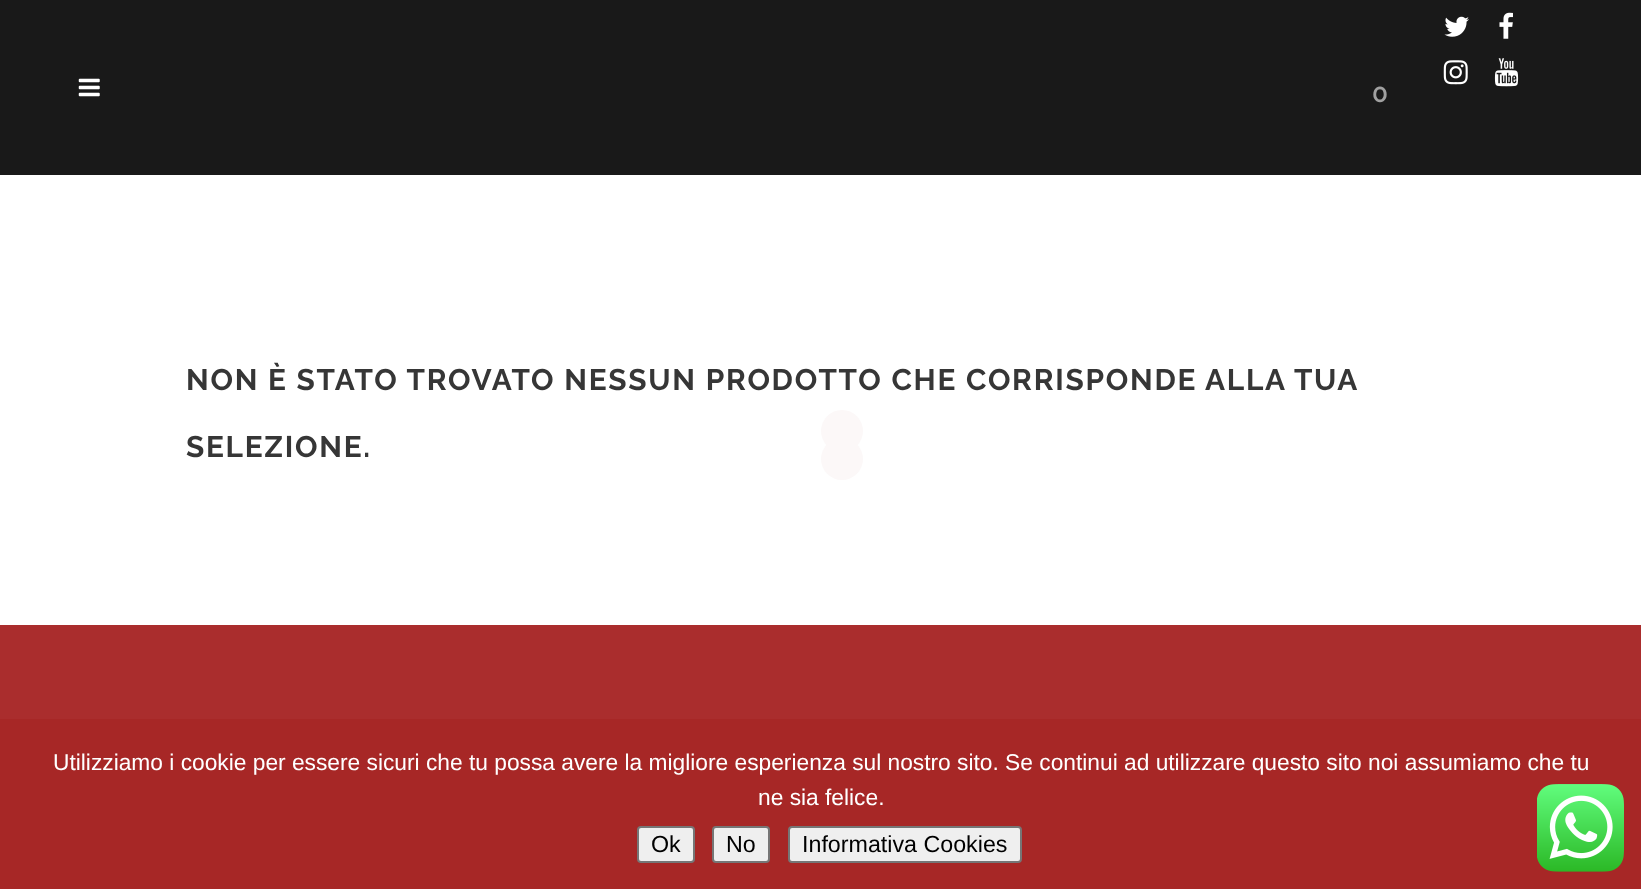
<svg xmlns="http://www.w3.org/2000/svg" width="1641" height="889">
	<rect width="100%" height="100%" fill="#FFFFFF" />
	<rect x="0" y="0" width="1641" height="175" fill="#191919" />
	<image x="78" y="78" width="22" height="19" href="assets/img1.png" />
	<image x="1444" y="16" width="25" height="21" href="assets/img2.png" />
	<image x="1499" y="12" width="14" height="27" href="assets/img3.png" />
	<image x="1443" y="60" width="25" height="25" href="assets/img4.png" />
	<image x="1494" y="58" width="25" height="29" href="assets/img5.png" />
	<text x="1372" y="102" font-family="Raleway" font-size="26" font-weight="600" fill="#A0A0A0">0</text>
	<g font-family="Raleway" font-size="29.75" font-weight="700" letter-spacing="1.75" fill="#363636">
		<text x="186" y="390">NON È STATO TROVATO NESSUN PRODOTTO CHE CORRISPONDE ALLA TUA</text>
		<text x="186" y="457">SELEZIONE.</text>
	</g>
	<rect x="0" y="625" width="1641" height="94" fill="#AA2D2D" />
	<circle cx="842" cy="431" r="21" fill="#FCF8F8" />
	<circle cx="842" cy="459" r="21" fill="#FCF8F8" />
	<rect x="0" y="719" width="1641" height="170" fill="#A72726" />
	<g font-family="Liberation Sans" font-size="22.75" fill="#FFFFFF">
		<text x="53" y="770">Utilizziamo i cookie per essere sicuri che tu possa avere la migliore esperienza sul nostro sito. Se continui ad utilizzare questo sito noi assumiamo che tu</text>
		<text x="758" y="805">ne sia felice.</text>
	</g>
	<rect x="638" y="827" width="56" height="35" rx="3" fill="#EFEFEF" stroke="#767676" stroke-width="2" />
	<text x="651" y="852" font-family="Liberation Sans" font-size="23.25" fill="#000000">Ok</text>
	<rect x="713" y="827" width="56" height="35" rx="3" fill="#EFEFEF" stroke="#767676" stroke-width="2" />
	<text x="726" y="852" font-family="Liberation Sans" font-size="23.25" fill="#000000">No</text>
	<rect x="789" y="827" width="232" height="35" rx="3" fill="#EFEFEF" stroke="#767676" stroke-width="2" />
	<text x="802" y="852" font-family="Liberation Sans" font-size="23.25" fill="#000000">Informativa Cookies</text>
	<image x="1537" y="784" width="87" height="88" href="assets/img6.png" />
</svg>
